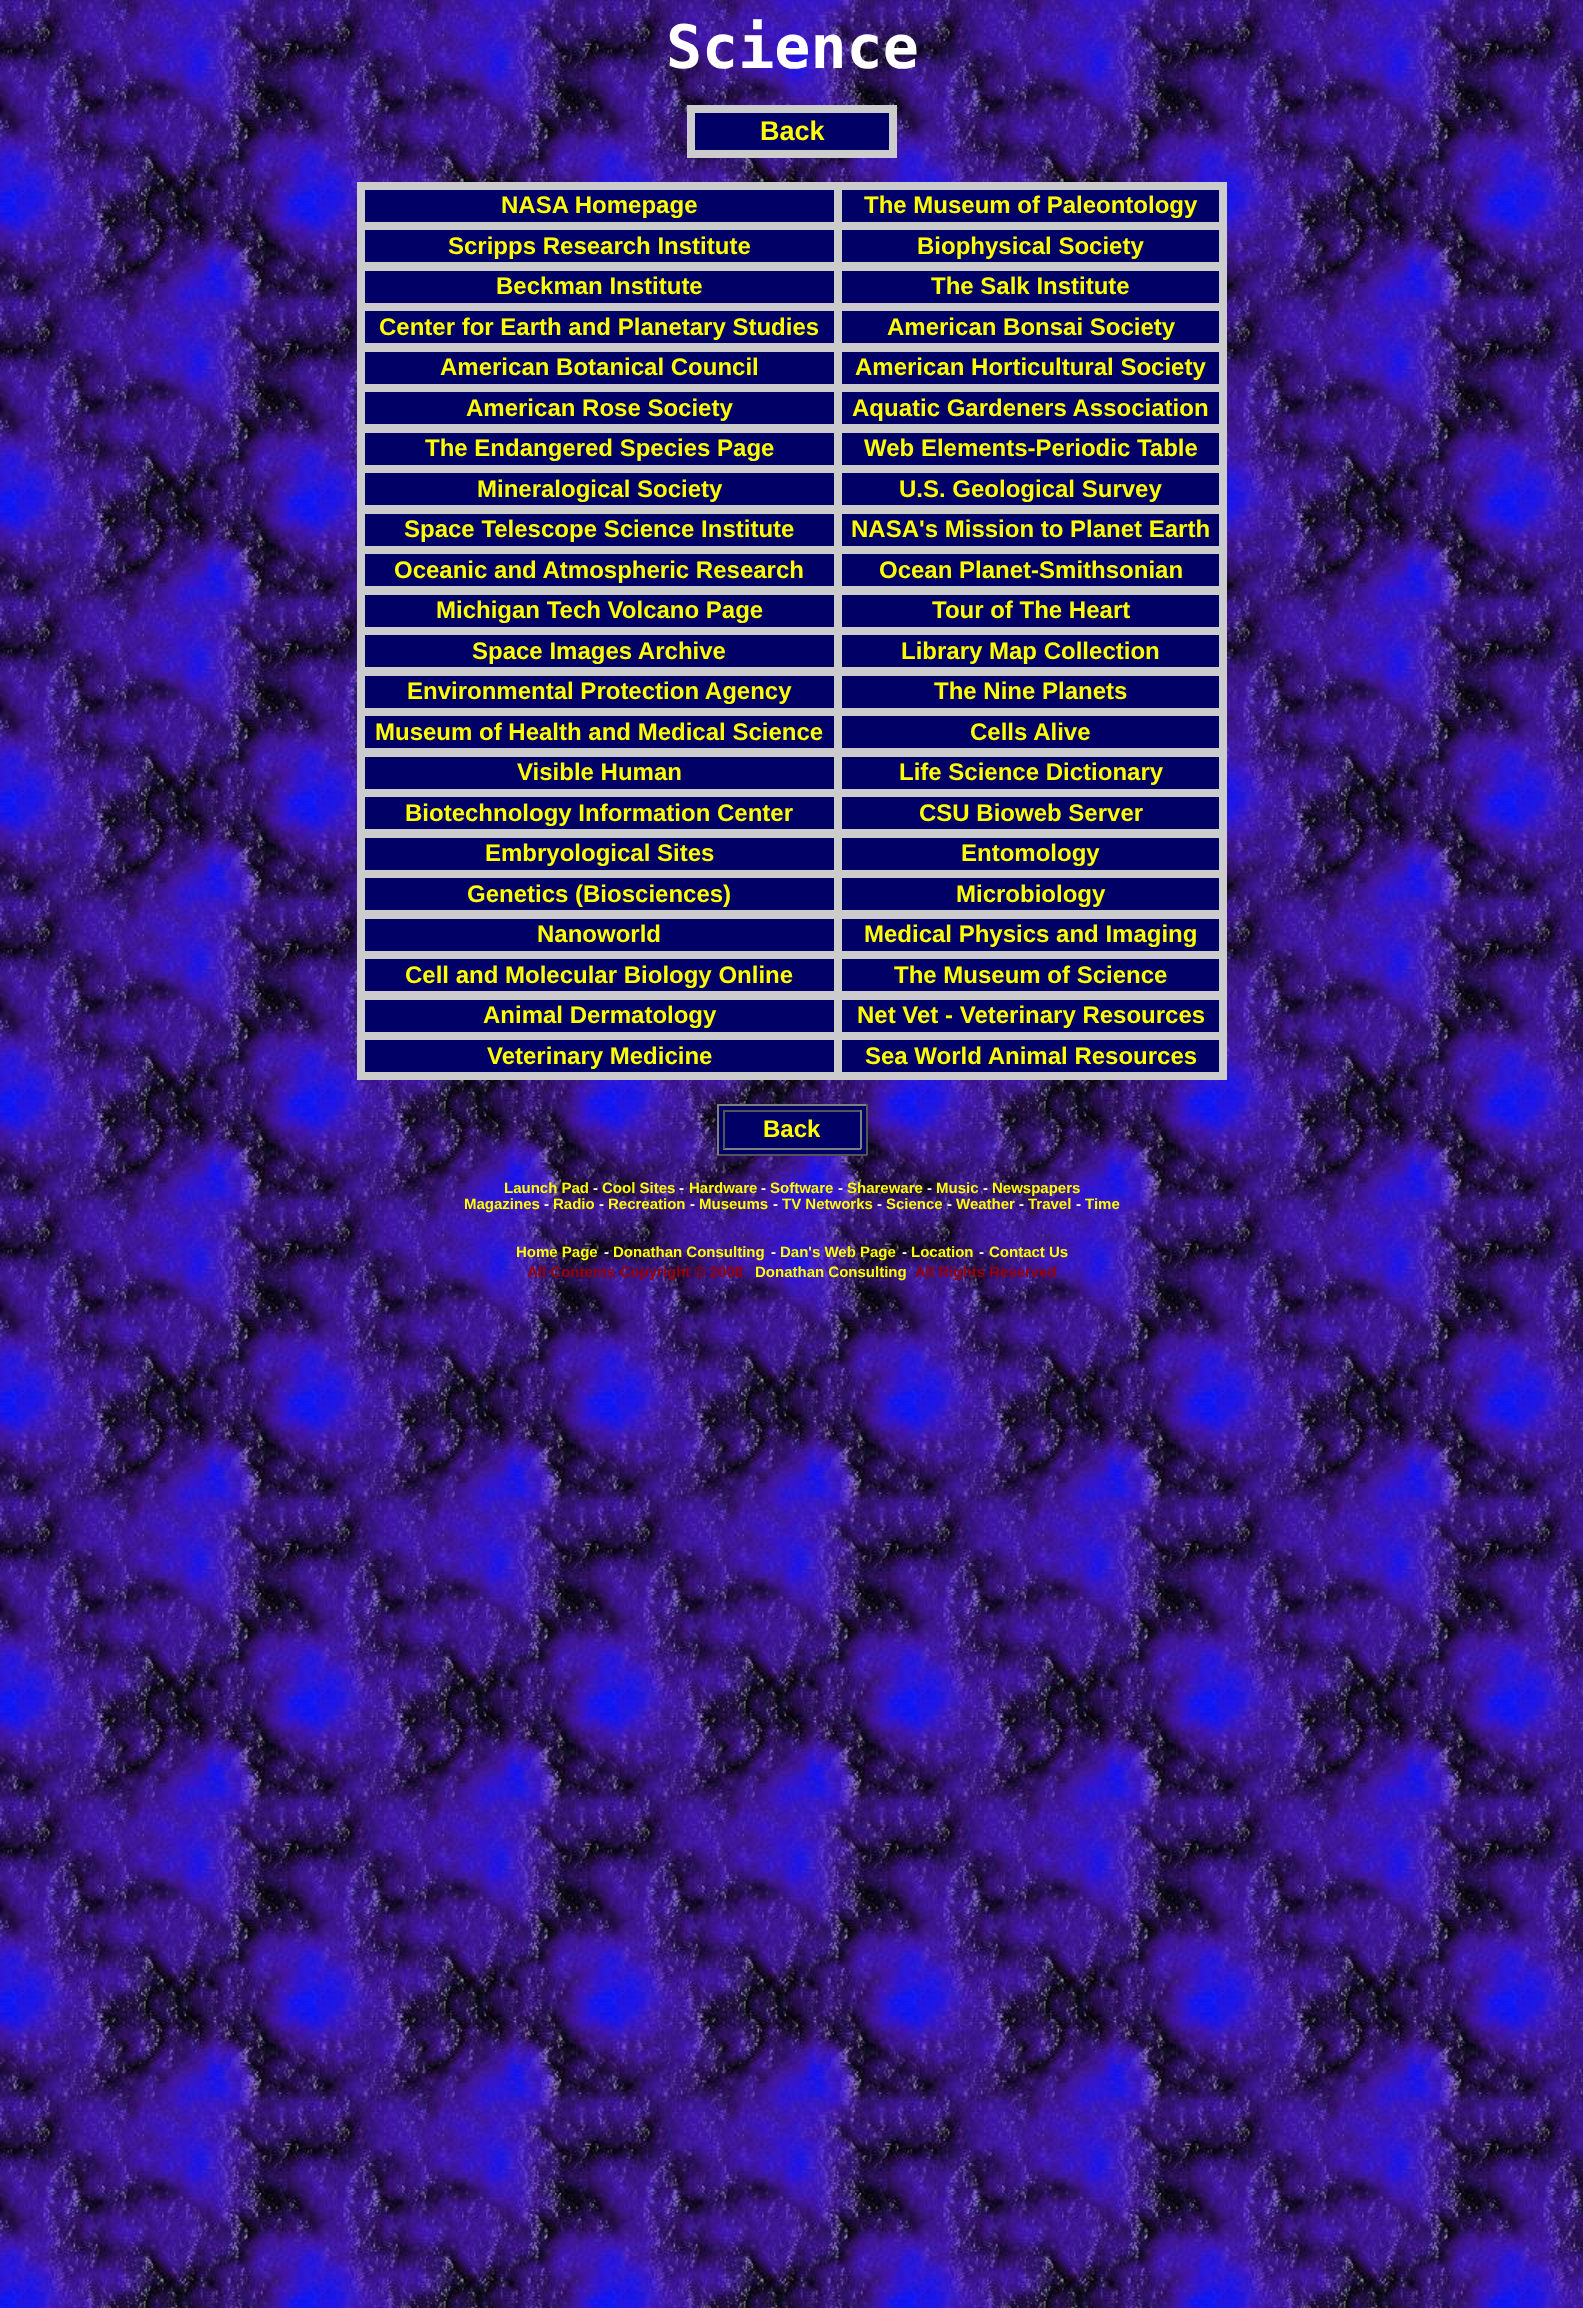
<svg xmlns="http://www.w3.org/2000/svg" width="1583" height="2308">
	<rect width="100%" height="100%" fill="#FFFFFF" />
	<image x="0" y="0" width="1583" height="2308" href="assets/img1.png" />
	<text x="666" y="68" font-family="DejaVu Sans Mono" font-size="60" font-weight="700" fill="#FFFFFF">Science</text>
	<rect x="687" y="105" width="210" height="53" fill="#CCCCCC" />
	<rect x="695" y="113" width="194" height="37" fill="#000066" />
	<text x="760" y="140" font-family="Liberation Sans" font-size="27" font-weight="700" fill="#FFFF00">Back</text>
	<rect x="357" y="182" width="870" height="898" fill="#CCCCCC" />
	<rect x="365" y="190" width="469" height="32" fill="#000066" />
	<text x="501" y="213" font-family="Liberation Sans" font-size="24" font-weight="700" fill="#FFFF00">NASA Homepage</text>
	<rect x="842" y="190" width="377" height="32" fill="#000066" />
	<text x="864" y="213" font-family="Liberation Sans" font-size="24" font-weight="700" fill="#FFFF00">The Museum of Paleontology</text>
	<rect x="365" y="230" width="469" height="32" fill="#000066" />
	<text x="448" y="254" font-family="Liberation Sans" font-size="24" font-weight="700" fill="#FFFF00">Scripps Research Institute</text>
	<rect x="842" y="230" width="377" height="32" fill="#000066" />
	<text x="917" y="254" font-family="Liberation Sans" font-size="24" font-weight="700" fill="#FFFF00">Biophysical Society</text>
	<rect x="365" y="271" width="469" height="32" fill="#000066" />
	<text x="496" y="294" font-family="Liberation Sans" font-size="24" font-weight="700" fill="#FFFF00">Beckman Institute</text>
	<rect x="842" y="271" width="377" height="32" fill="#000066" />
	<text x="931" y="294" font-family="Liberation Sans" font-size="24" font-weight="700" fill="#FFFF00">The Salk Institute</text>
	<rect x="365" y="311" width="469" height="32" fill="#000066" />
	<text x="379" y="335" font-family="Liberation Sans" font-size="24" font-weight="700" fill="#FFFF00">Center for Earth and Planetary Studies</text>
	<rect x="842" y="311" width="377" height="32" fill="#000066" />
	<text x="887" y="335" font-family="Liberation Sans" font-size="24" font-weight="700" fill="#FFFF00">American Bonsai Society</text>
	<rect x="365" y="352" width="469" height="32" fill="#000066" />
	<text x="440" y="375" font-family="Liberation Sans" font-size="24" font-weight="700" fill="#FFFF00">American Botanical Council</text>
	<rect x="842" y="352" width="377" height="32" fill="#000066" />
	<text x="855" y="375" font-family="Liberation Sans" font-size="24" font-weight="700" fill="#FFFF00">American Horticultural Society</text>
	<rect x="365" y="392" width="469" height="32" fill="#000066" />
	<text x="466" y="416" font-family="Liberation Sans" font-size="24" font-weight="700" fill="#FFFF00">American Rose Society</text>
	<rect x="842" y="392" width="377" height="32" fill="#000066" />
	<text x="852" y="416" font-family="Liberation Sans" font-size="24" font-weight="700" fill="#FFFF00">Aquatic Gardeners Association</text>
	<rect x="365" y="433" width="469" height="32" fill="#000066" />
	<text x="425" y="456" font-family="Liberation Sans" font-size="24" font-weight="700" fill="#FFFF00">The Endangered Species Page</text>
	<rect x="842" y="433" width="377" height="32" fill="#000066" />
	<text x="864" y="456" font-family="Liberation Sans" font-size="24" font-weight="700" fill="#FFFF00">Web Elements-Periodic Table</text>
	<rect x="365" y="473" width="469" height="32" fill="#000066" />
	<text x="477" y="497" font-family="Liberation Sans" font-size="24" font-weight="700" fill="#FFFF00">Mineralogical Society</text>
	<rect x="842" y="473" width="377" height="32" fill="#000066" />
	<text x="899" y="497" font-family="Liberation Sans" font-size="24" font-weight="700" fill="#FFFF00">U.S. Geological Survey</text>
	<rect x="365" y="514" width="469" height="32" fill="#000066" />
	<text x="404" y="537" font-family="Liberation Sans" font-size="24" font-weight="700" fill="#FFFF00">Space Telescope Science Institute</text>
	<rect x="842" y="514" width="377" height="32" fill="#000066" />
	<text x="851" y="537" font-family="Liberation Sans" font-size="24" font-weight="700" fill="#FFFF00">NASA's Mission to Planet Earth</text>
	<rect x="365" y="554" width="469" height="32" fill="#000066" />
	<text x="394" y="578" font-family="Liberation Sans" font-size="24" font-weight="700" fill="#FFFF00">Oceanic and Atmospheric Research</text>
	<rect x="842" y="554" width="377" height="32" fill="#000066" />
	<text x="879" y="578" font-family="Liberation Sans" font-size="24" font-weight="700" fill="#FFFF00">Ocean Planet-Smithsonian</text>
	<rect x="365" y="595" width="469" height="32" fill="#000066" />
	<text x="436" y="618" font-family="Liberation Sans" font-size="24" font-weight="700" fill="#FFFF00">Michigan Tech Volcano Page</text>
	<rect x="842" y="595" width="377" height="32" fill="#000066" />
	<text x="932" y="618" font-family="Liberation Sans" font-size="24" font-weight="700" fill="#FFFF00">Tour of The Heart</text>
	<rect x="365" y="635" width="469" height="32" fill="#000066" />
	<text x="472" y="659" font-family="Liberation Sans" font-size="24" font-weight="700" fill="#FFFF00">Space Images Archive</text>
	<rect x="842" y="635" width="377" height="32" fill="#000066" />
	<text x="901" y="659" font-family="Liberation Sans" font-size="24" font-weight="700" fill="#FFFF00">Library Map Collection</text>
	<rect x="365" y="676" width="469" height="32" fill="#000066" />
	<text x="407" y="699" font-family="Liberation Sans" font-size="24" font-weight="700" fill="#FFFF00">Environmental Protection Agency</text>
	<rect x="842" y="676" width="377" height="32" fill="#000066" />
	<text x="934" y="699" font-family="Liberation Sans" font-size="24" font-weight="700" fill="#FFFF00">The Nine Planets</text>
	<rect x="365" y="716" width="469" height="32" fill="#000066" />
	<text x="375" y="740" font-family="Liberation Sans" font-size="24" font-weight="700" fill="#FFFF00">Museum of Health and Medical Science</text>
	<rect x="842" y="716" width="377" height="32" fill="#000066" />
	<text x="970" y="740" font-family="Liberation Sans" font-size="24" font-weight="700" fill="#FFFF00">Cells Alive</text>
	<rect x="365" y="757" width="469" height="32" fill="#000066" />
	<text x="517" y="780" font-family="Liberation Sans" font-size="24" font-weight="700" fill="#FFFF00">Visible Human</text>
	<rect x="842" y="757" width="377" height="32" fill="#000066" />
	<text x="899" y="780" font-family="Liberation Sans" font-size="24" font-weight="700" fill="#FFFF00">Life Science Dictionary</text>
	<rect x="365" y="797" width="469" height="32" fill="#000066" />
	<text x="405" y="821" font-family="Liberation Sans" font-size="24" font-weight="700" fill="#FFFF00">Biotechnology Information Center</text>
	<rect x="842" y="797" width="377" height="32" fill="#000066" />
	<text x="919" y="821" font-family="Liberation Sans" font-size="24" font-weight="700" fill="#FFFF00">CSU Bioweb Server</text>
	<rect x="365" y="838" width="469" height="32" fill="#000066" />
	<text x="485" y="861" font-family="Liberation Sans" font-size="24" font-weight="700" fill="#FFFF00">Embryological Sites</text>
	<rect x="842" y="838" width="377" height="32" fill="#000066" />
	<text x="961" y="861" font-family="Liberation Sans" font-size="24" font-weight="700" fill="#FFFF00">Entomology</text>
	<rect x="365" y="878" width="469" height="32" fill="#000066" />
	<text x="467" y="902" font-family="Liberation Sans" font-size="24" font-weight="700" fill="#FFFF00">Genetics (Biosciences)</text>
	<rect x="842" y="878" width="377" height="32" fill="#000066" />
	<text x="956" y="902" font-family="Liberation Sans" font-size="24" font-weight="700" fill="#FFFF00">Microbiology</text>
	<rect x="365" y="919" width="469" height="32" fill="#000066" />
	<text x="537" y="942" font-family="Liberation Sans" font-size="24" font-weight="700" fill="#FFFF00">Nanoworld</text>
	<rect x="842" y="919" width="377" height="32" fill="#000066" />
	<text x="864" y="942" font-family="Liberation Sans" font-size="24" font-weight="700" fill="#FFFF00">Medical Physics and Imaging</text>
	<rect x="365" y="959" width="469" height="32" fill="#000066" />
	<text x="405" y="983" font-family="Liberation Sans" font-size="24" font-weight="700" fill="#FFFF00">Cell and Molecular Biology Online</text>
	<rect x="842" y="959" width="377" height="32" fill="#000066" />
	<text x="894" y="983" font-family="Liberation Sans" font-size="24" font-weight="700" fill="#FFFF00">The Museum of Science</text>
	<rect x="365" y="1000" width="469" height="32" fill="#000066" />
	<text x="483" y="1023" font-family="Liberation Sans" font-size="24" font-weight="700" fill="#FFFF00">Animal Dermatology</text>
	<rect x="842" y="1000" width="377" height="32" fill="#000066" />
	<text x="857" y="1023" font-family="Liberation Sans" font-size="24" font-weight="700" fill="#FFFF00">Net Vet - Veterinary Resources</text>
	<rect x="365" y="1040" width="469" height="32" fill="#000066" />
	<text x="487" y="1064" font-family="Liberation Sans" font-size="24" font-weight="700" fill="#FFFF00">Veterinary Medicine</text>
	<rect x="842" y="1040" width="377" height="32" fill="#000066" />
	<text x="865" y="1064" font-family="Liberation Sans" font-size="24" font-weight="700" fill="#FFFF00">Sea World Animal Resources</text>
	<rect x="719" y="1106" width="147" height="48" fill="#000066" />
	<rect x="717" y="1104" width="150" height="2" fill="#808080" />
	<rect x="866" y="1104" width="2" height="51" fill="#555555" />
	<rect x="717" y="1154" width="150" height="2" fill="#555555" />
	<rect x="717" y="1104" width="2" height="51" fill="#808080" />
	<rect x="723" y="1110" width="138" height="2" fill="#555555" />
	<rect x="860" y="1110" width="2" height="39" fill="#808080" />
	<rect x="723" y="1148" width="138" height="2" fill="#808080" />
	<rect x="723" y="1110" width="2" height="39" fill="#555555" />
	<text x="763" y="1137" font-family="Liberation Sans" font-size="24" font-weight="700" fill="#FFFF00">Back</text>
	<text x="504" y="1193" font-family="Liberation Sans" font-size="15" font-weight="700" fill="#FFFF00">Launch Pad</text>
	<text x="593" y="1193" font-family="Liberation Sans" font-size="15" font-weight="700" fill="#FFFFFF">-</text>
	<text x="602" y="1193" font-family="Liberation Sans" font-size="15" font-weight="700" fill="#FFFF00">Cool Sites</text>
	<text x="679" y="1193" font-family="Liberation Sans" font-size="15" font-weight="700" fill="#FFFFFF">-</text>
	<text x="689" y="1193" font-family="Liberation Sans" font-size="15" font-weight="700" fill="#FFFF00">Hardware</text>
	<text x="761" y="1193" font-family="Liberation Sans" font-size="15" font-weight="700" fill="#FFFFFF">-</text>
	<text x="770" y="1193" font-family="Liberation Sans" font-size="15" font-weight="700" fill="#FFFF00">Software</text>
	<text x="838" y="1193" font-family="Liberation Sans" font-size="15" font-weight="700" fill="#FFFFFF">-</text>
	<text x="847" y="1193" font-family="Liberation Sans" font-size="15" font-weight="700" fill="#FFFF00">Shareware</text>
	<text x="927" y="1193" font-family="Liberation Sans" font-size="15" font-weight="700" fill="#FFFFFF">-</text>
	<text x="936" y="1193" font-family="Liberation Sans" font-size="15" font-weight="700" fill="#FFFF00">Music</text>
	<text x="983" y="1193" font-family="Liberation Sans" font-size="15" font-weight="700" fill="#FFFFFF">-</text>
	<g font-family="Liberation Sans" font-size="15" font-weight="700" fill="#FFFF00">
		<text x="992" y="1193">Newspapers</text>
		<text x="464" y="1209">Magazines</text>
	</g>
	<text x="544" y="1209" font-family="Liberation Sans" font-size="15" font-weight="700" fill="#FFFFFF">-</text>
	<text x="553" y="1209" font-family="Liberation Sans" font-size="15" font-weight="700" fill="#FFFF00">Radio</text>
	<text x="599" y="1209" font-family="Liberation Sans" font-size="15" font-weight="700" fill="#FFFFFF">-</text>
	<text x="608" y="1209" font-family="Liberation Sans" font-size="15" font-weight="700" fill="#FFFF00">Recreation</text>
	<text x="690" y="1209" font-family="Liberation Sans" font-size="15" font-weight="700" fill="#FFFFFF">-</text>
	<text x="699" y="1209" font-family="Liberation Sans" font-size="15" font-weight="700" fill="#FFFF00">Museums</text>
	<text x="773" y="1209" font-family="Liberation Sans" font-size="15" font-weight="700" fill="#FFFFFF">-</text>
	<text x="782" y="1209" font-family="Liberation Sans" font-size="15" font-weight="700" fill="#FFFF00">TV Networks</text>
	<text x="877" y="1209" font-family="Liberation Sans" font-size="15" font-weight="700" fill="#FFFFFF">-</text>
	<text x="886" y="1209" font-family="Liberation Sans" font-size="15" font-weight="700" fill="#FFFF00">Science</text>
	<text x="947" y="1209" font-family="Liberation Sans" font-size="15" font-weight="700" fill="#FFFFFF">-</text>
	<text x="956" y="1209" font-family="Liberation Sans" font-size="15" font-weight="700" fill="#FFFF00">Weather</text>
	<text x="1019" y="1209" font-family="Liberation Sans" font-size="15" font-weight="700" fill="#FFFFFF">-</text>
	<text x="1028" y="1209" font-family="Liberation Sans" font-size="15" font-weight="700" fill="#FFFF00">Travel</text>
	<text x="1076" y="1209" font-family="Liberation Sans" font-size="15" font-weight="700" fill="#FFFFFF">-</text>
	<g font-family="Liberation Sans" font-size="15" font-weight="700" fill="#FFFF00">
		<text x="1085" y="1209">Time</text>
		<text x="516" y="1257">Home Page</text>
	</g>
	<text x="604" y="1257" font-family="Liberation Sans" font-size="15" font-weight="700" fill="#FFFFFF">-</text>
	<text x="613" y="1257" font-family="Liberation Sans" font-size="15" font-weight="700" fill="#FFFF00">Donathan Consulting</text>
	<text x="771" y="1257" font-family="Liberation Sans" font-size="15" font-weight="700" fill="#FFFFFF">-</text>
	<text x="780" y="1257" font-family="Liberation Sans" font-size="15" font-weight="700" fill="#FFFF00">Dan's Web Page</text>
	<text x="902" y="1257" font-family="Liberation Sans" font-size="15" font-weight="700" fill="#FFFFFF">-</text>
	<text x="911" y="1257" font-family="Liberation Sans" font-size="15" font-weight="700" fill="#FFFF00">Location</text>
	<text x="979" y="1257" font-family="Liberation Sans" font-size="15" font-weight="700" fill="#FFFFFF">-</text>
	<text x="989" y="1257" font-family="Liberation Sans" font-size="15" font-weight="700" fill="#FFFF00">Contact Us</text>
	<text x="527" y="1277" font-family="Liberation Sans" font-size="15" font-weight="700" fill="#990000">All Contents Copyright © 2008</text>
	<text x="755" y="1277" font-family="Liberation Sans" font-size="15" font-weight="700" fill="#FFFF00">Donathan Consulting</text>
	<text x="915" y="1277" font-family="Liberation Sans" font-size="15" font-weight="700" fill="#990000">All Rights Reserved</text>
</svg>
